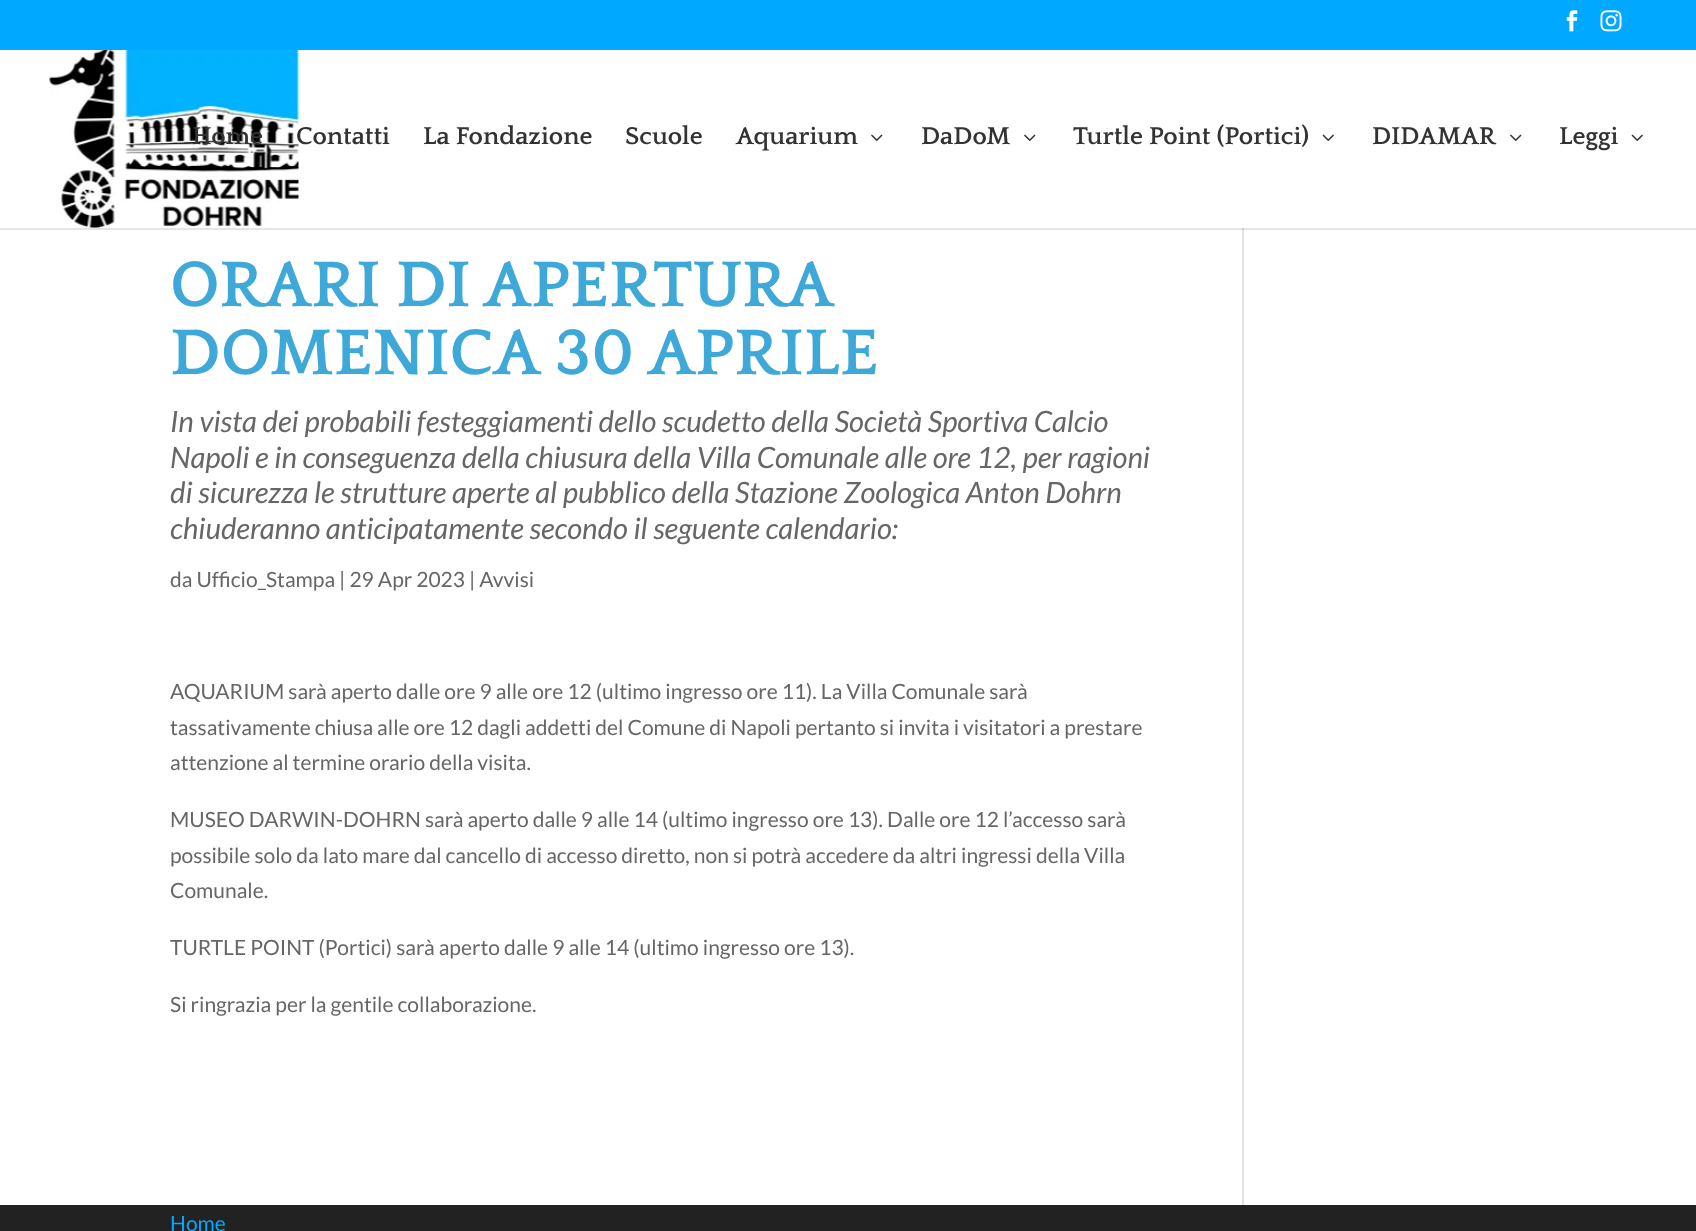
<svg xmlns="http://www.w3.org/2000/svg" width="1696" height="1231">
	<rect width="100%" height="100%" fill="#FFFFFF" />
	<rect x="0" y="0" width="1696" height="50" fill="#00A8FF" />
	<image x="1566" y="10" width="12" height="22" href="assets/img1.png" />
	<image x="1600" y="10" width="22" height="22" href="assets/img2.png" />
	<rect x="1242" y="228" width="2" height="977" fill="#E2E2E2" />
	<path d="M0 228V230H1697V47H1696V228Z" fill="#000000" fill-opacity="0.1" />
	<image x="49" y="50" width="250" height="178" href="assets/img3.png" />
	<g font-family="Quattrocento" font-size="25.5" font-weight="700" fill="#333333">
		<text x="192" y="144">Home</text>
		<text x="296" y="144">Contatti</text>
		<text x="423" y="144">La Fondazione</text>
		<text x="625" y="144">Scuole</text>
		<text x="736" y="144">Aquarium</text>
	</g>
	<image x="871" y="134" width="12" height="7" href="assets/img4.png" />
	<text x="921" y="144" font-family="Quattrocento" font-size="25.5" font-weight="700" fill="#333333">DaDoM</text>
	<image x="1024" y="134" width="12" height="7" href="assets/img4.png" />
	<text x="1073" y="144" font-family="Quattrocento" font-size="25.5" font-weight="700" fill="#333333">Turtle Point (Portici)</text>
	<image x="1322" y="134" width="12" height="7" href="assets/img5.png" />
	<text x="1372" y="144" font-family="Quattrocento" font-size="25.5" font-weight="700" fill="#333333">DIDAMAR</text>
	<image x="1510" y="134" width="12" height="7" href="assets/img4.png" />
	<text x="1559" y="144" font-family="Quattrocento" font-size="25.5" font-weight="700" fill="#333333">Leggi</text>
	<image x="1631" y="134" width="12" height="7" href="assets/img5.png" />
	<g font-family="Quattrocento" font-size="67.5" font-weight="700" fill="#3EA8D8">
		<text x="170" y="306" word-spacing="-1">ORARI DI APERTURA</text>
		<text x="170" y="374">DOMENICA 30 APRILE</text>
	</g>
	<g font-family="Lato" font-size="29.4" font-style="italic" fill="#666666">
		<text x="170" y="432">In vista dei probabili festeggiamenti dello scudetto della Società Sportiva Calcio</text>
		<text x="170" y="468">Napoli e in conseguenza della chiusura della Villa Comunale alle ore 12, per ragioni</text>
		<text x="170" y="503">di sicurezza le strutture aperte al pubblico della Stazione Zoologica Anton Dohrn</text>
		<text x="170" y="539">chiuderanno anticipatamente secondo il seguente calendario:</text>
	</g>
	<g font-family="Lato" font-size="21" fill="#666666">
		<text x="170" y="587">da Ufficio_Stampa | 29 Apr 2023 | Avvisi</text>
		<text x="170" y="699">AQUARIUM sarà aperto dalle ore 9 alle ore 12 (ultimo ingresso ore 11). La Villa Comunale sarà</text>
		<text x="170" y="735">tassativamente chiusa alle ore 12 dagli addetti del Comune di Napoli pertanto si invita i visitatori a prestare</text>
		<text x="170" y="770">attenzione al termine orario della visita.</text>
		<text x="170" y="827">MUSEO DARWIN-DOHRN sarà aperto dalle 9 alle 14 (ultimo ingresso ore 13). Dalle ore 12 l’accesso sarà</text>
		<text x="170" y="863">possibile solo da lato mare dal cancello di accesso diretto, non si potrà accedere da altri ingressi della Villa</text>
		<text x="170" y="898">Comunale.</text>
		<text x="170" y="955">TURTLE POINT (Portici) sarà aperto dalle 9 alle 14 (ultimo ingresso ore 13).</text>
		<text x="170" y="1012">Si ringrazia per la gentile collaborazione.</text>
	</g>
	<rect x="0" y="1205" width="1696" height="26" fill="#222222" />
	<text x="170" y="1231" font-family="Lato" font-size="21" fill="#00A8FF">Home</text>
</svg>
